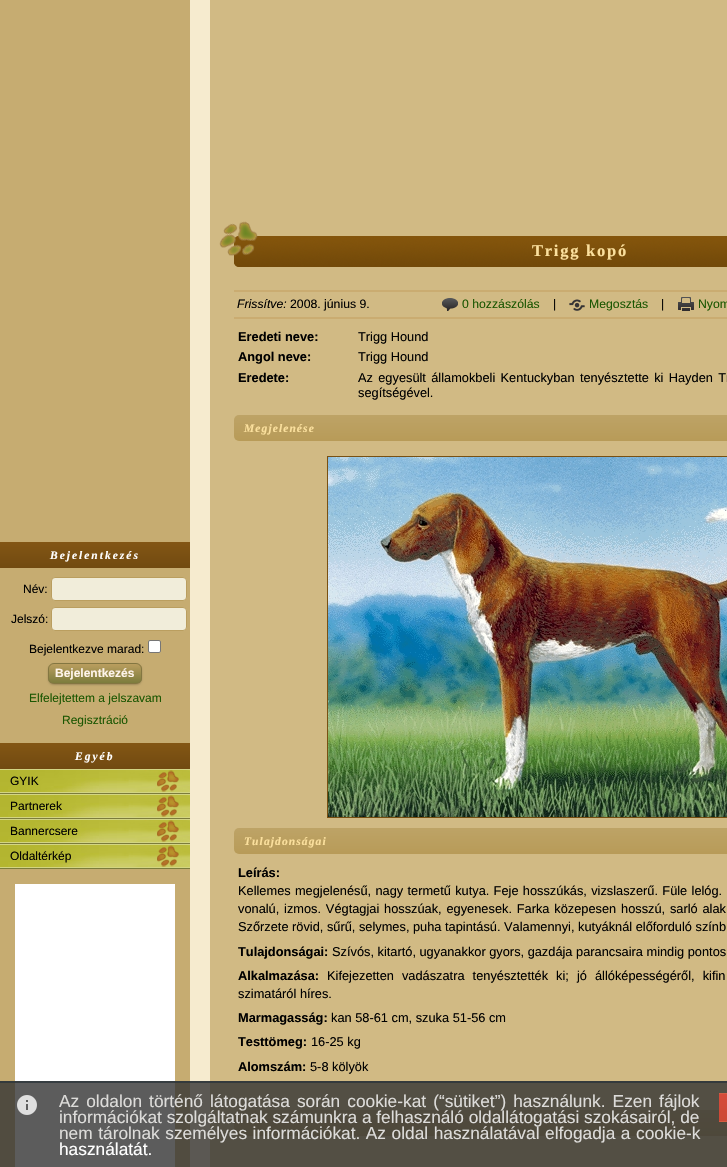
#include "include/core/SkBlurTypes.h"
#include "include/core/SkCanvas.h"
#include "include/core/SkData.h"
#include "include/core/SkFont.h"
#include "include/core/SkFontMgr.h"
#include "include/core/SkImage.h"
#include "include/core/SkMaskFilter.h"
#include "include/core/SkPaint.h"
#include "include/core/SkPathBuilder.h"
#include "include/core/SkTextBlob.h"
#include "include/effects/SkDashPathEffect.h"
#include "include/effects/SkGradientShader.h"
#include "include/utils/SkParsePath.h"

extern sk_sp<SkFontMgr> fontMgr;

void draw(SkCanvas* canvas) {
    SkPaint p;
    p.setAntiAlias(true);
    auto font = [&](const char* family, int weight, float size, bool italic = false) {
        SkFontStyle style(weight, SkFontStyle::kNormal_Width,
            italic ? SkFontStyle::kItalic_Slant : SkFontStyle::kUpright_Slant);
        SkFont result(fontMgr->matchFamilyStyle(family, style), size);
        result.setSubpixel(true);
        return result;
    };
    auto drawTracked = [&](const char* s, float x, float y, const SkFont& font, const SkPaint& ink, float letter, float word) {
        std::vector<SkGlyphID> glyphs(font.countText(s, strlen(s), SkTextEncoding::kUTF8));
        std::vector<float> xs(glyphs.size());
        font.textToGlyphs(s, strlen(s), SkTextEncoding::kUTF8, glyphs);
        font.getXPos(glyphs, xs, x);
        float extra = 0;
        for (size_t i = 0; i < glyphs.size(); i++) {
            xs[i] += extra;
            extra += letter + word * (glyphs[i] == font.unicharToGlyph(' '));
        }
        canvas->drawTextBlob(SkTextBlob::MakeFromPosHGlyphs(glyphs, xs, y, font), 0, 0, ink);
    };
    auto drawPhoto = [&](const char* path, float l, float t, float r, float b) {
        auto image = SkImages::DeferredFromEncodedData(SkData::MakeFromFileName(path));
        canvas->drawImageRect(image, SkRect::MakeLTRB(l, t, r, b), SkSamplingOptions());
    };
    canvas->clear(0xFFFFFFFF);
    drawPhoto("media/1.png", 0, 0, 727, 1167);
    {
        const SkColor colors[] = {0xFF835614, 0xFF714A11};
        const float stops[] = {0, 1};
        const SkPoint ends[] = {{0, 542}, {0, 568}};
        p.setShader(SkGradientShader::MakeLinear(ends, colors, stops, 2, SkTileMode::kClamp));
        p.setAlpha(255);
    }
    canvas->drawRect(SkRect::MakeLTRB(0, 542, 190, 568), p);
    auto font1 = font("Liberation Serif", 700, 11.5f, true);
    p.setShader(nullptr);
    p.setColor(0xFFFFFFFF);
    drawTracked("Bejelentkezés", 50, 559, font1, p, 2, 0);
    auto font2 = font("Liberation Sans", 400, 12);
    p.setColor(0xFF000000);
    canvas->drawString("Név:", 23, 593, font2, p);
    p.setColor(0xFFF1EDDA);
    canvas->drawRoundRect(SkRect::MakeLTRB(51.5f, 577.5f, 186.5f, 600.5f), 3.5f, 3.5f, p);
    p.setStyle(SkPaint::kStroke_Style);
    p.setStrokeWidth(1);
    p.setColor(0xFFBA9E5F);
    canvas->drawRoundRect(SkRect::MakeLTRB(51.5f, 577.5f, 186.5f, 600.5f), 3.5f, 3.5f, p);
    p.setStyle(SkPaint::kFill_Style);
    p.setColor(0xFF000000);
    canvas->drawString("Jelszó:", 11, 623, font2, p);
    p.setColor(0xFFF1EDDA);
    canvas->drawRoundRect(SkRect::MakeLTRB(51.5f, 607.5f, 186.5f, 630.5f), 3.5f, 3.5f, p);
    p.setStyle(SkPaint::kStroke_Style);
    p.setColor(0xFFBA9E5F);
    canvas->drawRoundRect(SkRect::MakeLTRB(51.5f, 607.5f, 186.5f, 630.5f), 3.5f, 3.5f, p);
    p.setStyle(SkPaint::kFill_Style);
    p.setColor(0xFF000000);
    canvas->drawString("Bejelentkezve marad:", 29, 653, font2, p);
    p.setColor(0xFFFFFFFF);
    canvas->drawRoundRect(SkRect::MakeLTRB(148.5f, 640.5f, 160.5f, 652.5f), 1.5f, 1.5f, p);
    p.setStyle(SkPaint::kStroke_Style);
    p.setColor(0xFF767676);
    canvas->drawRoundRect(SkRect::MakeLTRB(148.5f, 640.5f, 160.5f, 652.5f), 1.5f, 1.5f, p);
    p.setStyle(SkPaint::kFill_Style);
    p.setColor(0x33000000);
    p.setMaskFilter(SkMaskFilter::MakeBlur(kNormal_SkBlurStyle, 1));
    canvas->drawRoundRect(SkRect::MakeLTRB(48, 664, 142, 685), 6, 6, p);
    p.setMaskFilter(nullptr);
    canvas->save();
    canvas->clipPath(SkPathBuilder().moveTo(54, 663).lineTo(136, 663).cubicTo(139.5f, 663, 142, 665.5f, 142, 669).lineTo(142, 678).cubicTo(142, 681.5f, 139.5f, 684, 136, 684).lineTo(54, 684).cubicTo(50.5f, 684, 48, 681.5f, 48, 678).lineTo(48, 669).cubicTo(48, 665.5f, 50.5f, 663, 54, 663).close().detach(), true);
    {
        const SkColor colors[] = {0xFFBA9E5F, 0xFF7C7C3C};
        const float stops[] = {0, 1};
        const SkPoint ends[] = {{49, 664}, {49, 683}};
        p.setShader(SkGradientShader::MakeLinear(ends, colors, stops, 2, SkTileMode::kClamp));
        p.setAlpha(255);
    }
    canvas->drawRect(SkRect::MakeLTRB(48, 664, 142, 683), p);
    canvas->restore();
    p.setStyle(SkPaint::kStroke_Style);
    p.setShader(nullptr);
    p.setColor(0xFF837641);
    canvas->drawRoundRect(SkRect::MakeLTRB(48.5f, 663.5f, 141.5f, 683.5f), 5.5f, 5.5f, p);
    auto font3 = font("Liberation Sans", 700, 12);
    p.setStyle(SkPaint::kFill_Style);
    p.setColor(0xFFFEF4E9);
    canvas->drawString("Bejelentkezés", 55, 677, font3, p);
    p.setColor(0xFF1C5702);
    canvas->drawString("Elfelejtettem a jelszavam", 29, 702, font2, p);
    canvas->drawString("Regisztráció", 62, 724, font2, p);
    {
        const SkColor colors[] = {0xFF835614, 0xFF714A11};
        const float stops[] = {0, 1};
        const SkPoint ends[] = {{0, 743}, {0, 769}};
        p.setShader(SkGradientShader::MakeLinear(ends, colors, stops, 2, SkTileMode::kClamp));
        p.setAlpha(255);
    }
    canvas->drawRect(SkRect::MakeLTRB(0, 743, 190, 769), p);
    p.setShader(nullptr);
    p.setColor(0xFFFFFFFF);
    drawTracked("Egyéb", 75, 760, font1, p, 2, 0);
    p.setColor(0xFFD3D582);
    canvas->drawRect(SkRect::MakeLTRB(0, 769, 190, 868), p);
    drawPhoto("media/2.png", 0, 770, 190, 792);
    p.setColor(0xFF7C7C3C);
    canvas->drawRect(SkRect::MakeLTRB(0, 793, 190, 794), p);
    p.setColor(0xFF000000);
    canvas->drawString("GYIK", 10, 785, font2, p);
    drawPhoto("media/2.png", 0, 795, 190, 817);
    p.setColor(0xFF7C7C3C);
    canvas->drawRect(SkRect::MakeLTRB(0, 818, 190, 819), p);
    p.setColor(0xFF000000);
    canvas->drawString("Partnerek", 10, 810, font2, p);
    drawPhoto("media/2.png", 0, 820, 190, 842);
    p.setColor(0xFF7C7C3C);
    canvas->drawRect(SkRect::MakeLTRB(0, 843, 190, 844), p);
    p.setColor(0xFF000000);
    canvas->drawString("Bannercsere", 10, 835, font2, p);
    drawPhoto("media/2.png", 0, 845, 190, 867);
    p.setColor(0xFF7C7C3C);
    canvas->drawRect(SkRect::MakeLTRB(0, 868, 190, 869), p);
    p.setColor(0xFF000000);
    canvas->drawString("Oldaltérkép", 10, 860, font2, p);
    p.setColor(0xFFFFFFFF);
    canvas->drawRect(SkRect::MakeLTRB(15, 884, 175, 1167), p);
    drawPhoto("media/3.png", 219, 221, 727, 267);
    auto font4 = font("Liberation Serif", 700, 16.5f);
    p.setColor(0xFFFBE09D);
    drawTracked("Trigg kopó", 532, 256, font4, p, 1.75f, 0);
    p.setColor(0xFFCAAC71);
    canvas->drawRect(SkRect::MakeLTRB(234, 290, 727, 292), p);
    canvas->drawRect(SkRect::MakeLTRB(234, 317, 727, 319), p);
    auto font5 = font("Liberation Sans", 400, 12.25f, true);
    p.setColor(0xFF000000);
    canvas->drawString("Frissítve:", 237, 308, font5, p);
    auto font6 = font("Liberation Sans", 400, 12.25f);
    canvas->drawString("2008. június 9.", 290, 308, font6, p);
    drawPhoto("media/4.png", 442, 298, 458, 311);
    p.setColor(0xFF1C5702);
    canvas->drawString("0 hozzászólás", 462, 308, font6, p);
    p.setColor(0xFF000000);
    canvas->drawString("|", 553, 308, font6, p);
    drawPhoto("media/5.png", 569, 299, 585, 311);
    p.setColor(0xFF1C5702);
    canvas->drawString("Megosztás", 589, 308, font6, p);
    p.setColor(0xFF000000);
    canvas->drawString("|", 661, 308, font6, p);
    drawPhoto("media/6.png", 678, 297, 694, 311);
    p.setColor(0xFF1C5702);
    canvas->drawString("Nyom", 698, 308, font6, p);
    auto font7 = font("Liberation Sans", 700, 12.8f);
    p.setColor(0xFF000000);
    canvas->drawString("Eredeti neve:", 238, 341, font7, p);
    auto font8 = font("Liberation Sans", 400, 12.8f);
    canvas->drawString("Trigg Hound", 358, 341, font8, p);
    canvas->drawString("Angol neve:", 238, 361, font7, p);
    canvas->drawString("Trigg Hound", 358, 361, font8, p);
    canvas->drawString("Eredete:", 238, 382, font7, p);
    drawTracked("Az egyesült államokbeli Kentuckyban tenyésztette ki Hayden Tr", 358, 382, font8, p, 0, 1.75f);
    canvas->drawString("segítségével.", 358, 397, font8, p);
    {
        const SkColor colors[] = {0xFFBDA366, 0xFFB89B58};
        const float stops[] = {0, 1};
        const SkPoint ends[] = {{234, 415}, {234, 441}};
        p.setShader(SkGradientShader::MakeLinear(ends, colors, stops, 2, SkTileMode::kClamp));
        p.setAlpha(255);
    }
    canvas->drawRoundRect(SkRect::MakeLTRB(234, 415, 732, 441), 5, 5, p);
    p.setShader(nullptr);
    p.setColor(0xFFFBE09D);
    drawTracked("Megjelenése", 244, 432, font1, p, 1.1f, 0);
    p.setStyle(SkPaint::kStroke_Style);
    p.setColor(0xFF785012);
    canvas->drawRect(SkRect::MakeLTRB(327.5f, 456.5f, 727.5f, 817.5f), p);
    drawPhoto("media/7.png", 328, 457, 727, 817);
    p.setStyle(SkPaint::kFill_Style);
    {
        const SkColor colors[] = {0xFFBDA366, 0xFFB89B58};
        const float stops[] = {0, 1};
        const SkPoint ends[] = {{234, 828}, {234, 854}};
        p.setShader(SkGradientShader::MakeLinear(ends, colors, stops, 2, SkTileMode::kClamp));
        p.setAlpha(255);
    }
    canvas->drawRoundRect(SkRect::MakeLTRB(234, 828, 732, 854), 5, 5, p);
    p.setShader(nullptr);
    p.setColor(0xFFFBE09D);
    drawTracked("Tulajdonságai", 244, 845, font1, p, 1.1f, 0);
    p.setColor(0xFF000000);
    canvas->drawString("Leírás:", 238, 877, font7, p);
    drawTracked("Kellemes megjelenésű, nagy termetű kutya. Feje hosszúkás, vizslaszerű. Füle lelóg.", 238, 895, font8, p, 0, 0.75f);
    drawTracked("vonalú, izmos. Végtagjai hosszúak, egyenesek. Farka közepesen hosszú, sarló alak", 238, 913, font8, p, 0, 1.25f);
    canvas->drawString("Szőrzete rövid, sűrű, selymes, puha tapintású. Valamennyi, kutyáknál előforduló színb", 238, 931, font8, p);
    canvas->drawString("Tulajdonságai:", 238, 956, font7, p);
    canvas->drawString("Szívós, kitartó, ugyanakkor gyors, gazdája parancsaira mindig pontos", 332, 956, font8, p);
    canvas->drawString("Alkalmazása:", 238, 980, font7, p);
    drawTracked("Kifejezetten vadászatra tenyésztették ki; jó állóképességéről, kifin", 327, 980, font8, p, 0, 4.5f);
    canvas->drawString("szimatáról híres.", 238, 998, font8, p);
    canvas->drawString("Marmagasság:", 238, 1022, font7, p);
    canvas->drawString("kan 58-61 cm, szuka 51-56 cm", 331, 1022, font8, p);
    canvas->drawString("Testtömeg:", 238, 1046, font7, p);
    canvas->drawString("16-25 kg", 311, 1046, font8, p);
    canvas->drawString("Alomszám:", 238, 1071, font7, p);
    canvas->drawString("5-8 kölyök", 310, 1071, font8, p);
    {
        const SkColor colors[] = {0xFFBDA366, 0xFFB89B58};
        const float stops[] = {0, 1};
        const SkPoint ends[] = {{234, 1110}, {234, 1136}};
        p.setShader(SkGradientShader::MakeLinear(ends, colors, stops, 2, SkTileMode::kClamp));
        p.setAlpha(255);
    }
    canvas->drawRoundRect(SkRect::MakeLTRB(234, 1110, 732, 1136), 5, 5, p);
    p.setShader(nullptr);
    p.setColor(0xCC333333);
    canvas->drawRect(SkRect::MakeLTRB(0, 1081, 727, 1167), p);
    p.setColor(0xCC2C353A);
    canvas->drawRect(SkRect::MakeLTRB(0, 1081, 727, 1083), p);
    drawPhoto("media/8.png", 17, 1095, 37, 1115);
    auto font9 = font("Liberation Sans", 400, 17.3f);
    p.setColor(0xFFDDDCDA);
    drawTracked("Az oldalon történő látogatása során cookie-kat (“sütiket”) használunk. Ezen fájlok", 59, 1107, font9, p, 0, 2.25f);
    canvas->drawString("információkat szolgáltatnak számunkra a felhasználó oldallátogatási szokásairól, de", 59, 1123, font9, p);
    drawTracked("nem tárolnak személyes információkat. Az oldal használatával elfogadja a cookie-k", 59, 1139, font9, p, 0, 0.75f);
    p.setColor(0xFFFFFFFF);
    canvas->drawString("használatát.", 59, 1155, font9, p);
    p.setColor(0xCCD14836);
    canvas->drawRoundRect(SkRect::MakeLTRB(719, 1093, 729, 1122), 2, 2, p);
    {
        const SkColor colors[] = {0xFFDB6148, 0xFFD15F46};
        const float stops[] = {0, 1};
        const SkPoint ends[] = {{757, 1067}, {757, 1094}};
        p.setShader(SkGradientShader::MakeLinear(ends, colors, stops, 2, SkTileMode::kClamp));
        p.setAlpha(255);
    }
    canvas->drawRect(SkRect::MakeLTRB(719, 1093, 727, 1094), p);
    {
        const SkColor colors[] = {0xCCDD4B39, 0xCCD14836};
        const float stops[] = {0, 1};
        const SkPoint ends[] = {{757, 1094}, {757, 1121}};
        p.setShader(SkGradientShader::MakeLinear(ends, colors, stops, 2, SkTileMode::kClamp));
        p.setAlpha(255);
    }
    canvas->drawRect(SkRect::MakeLTRB(719, 1094, 727, 1121), p);
    {
        const SkColor colors[] = {0xFFD65C41, 0xFFCD593E};
        const float stops[] = {0, 1};
        const SkPoint ends[] = {{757, 1121}, {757, 1148}};
        p.setShader(SkGradientShader::MakeLinear(ends, colors, stops, 2, SkTileMode::kClamp));
        p.setAlpha(255);
    }
    canvas->drawRect(SkRect::MakeLTRB(719, 1121, 727, 1122), p);
}
